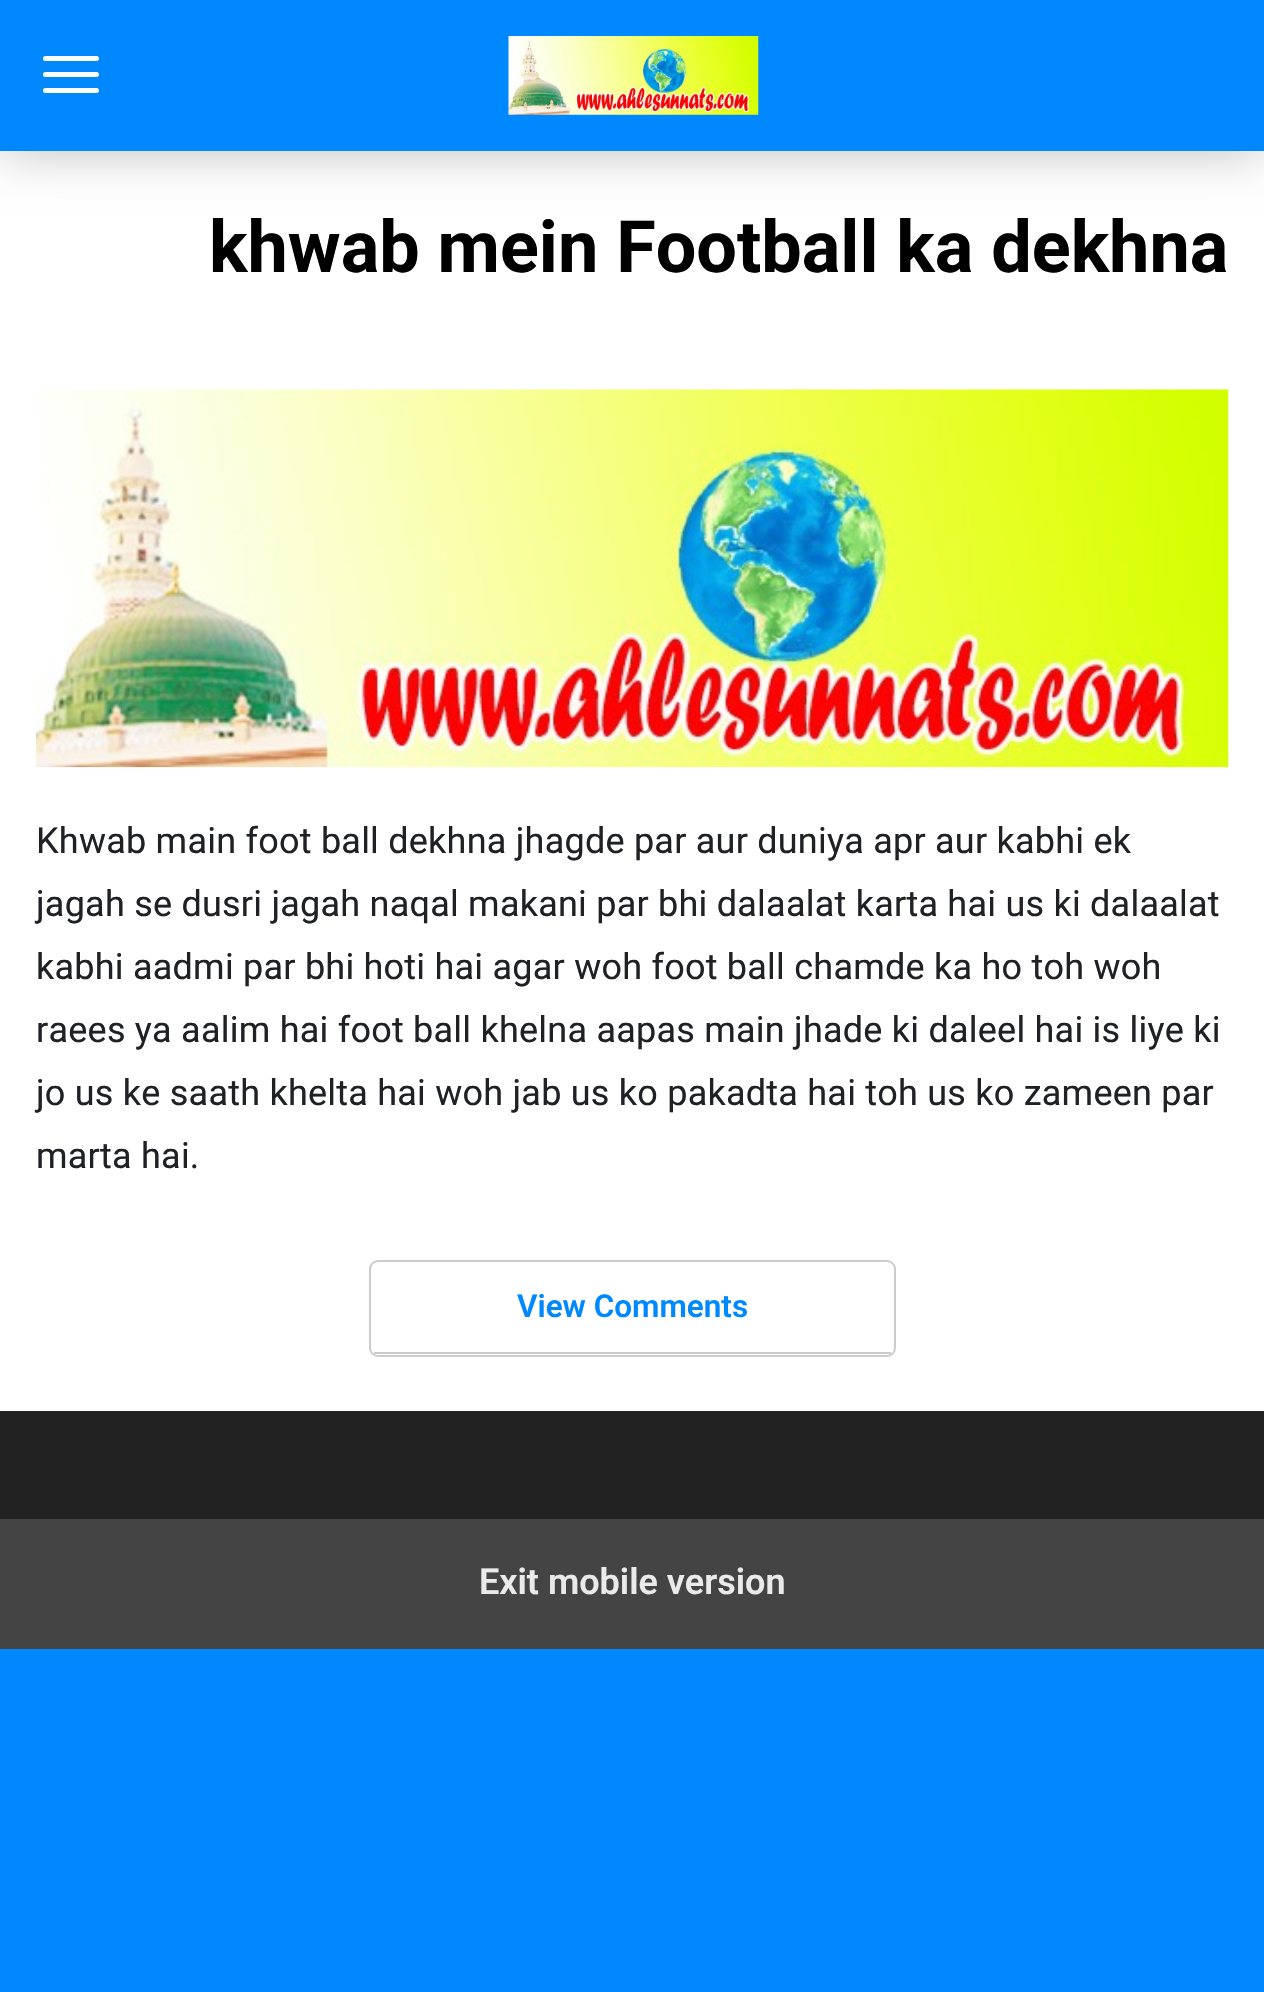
#include "include/core/SkBlurTypes.h"
#include "include/core/SkCanvas.h"
#include "include/core/SkData.h"
#include "include/core/SkFont.h"
#include "include/core/SkFontMgr.h"
#include "include/core/SkImage.h"
#include "include/core/SkMaskFilter.h"
#include "include/core/SkPaint.h"
#include "include/core/SkPathBuilder.h"
#include "include/core/SkTextBlob.h"
#include "include/effects/SkDashPathEffect.h"
#include "include/effects/SkGradientShader.h"
#include "include/utils/SkParsePath.h"

extern sk_sp<SkFontMgr> fontMgr;

void draw(SkCanvas* canvas) {
    SkPaint p;
    p.setAntiAlias(true);
    auto font = [&](const char* family, int weight, float size, bool italic = false) {
        SkFontStyle style(weight, SkFontStyle::kNormal_Width,
            italic ? SkFontStyle::kItalic_Slant : SkFontStyle::kUpright_Slant);
        SkFont result(fontMgr->matchFamilyStyle(family, style), size);
        result.setSubpixel(true);
        return result;
    };
    auto drawTracked = [&](const char* s, float x, float y, const SkFont& font, const SkPaint& ink, float letter, float word) {
        std::vector<SkGlyphID> glyphs(font.countText(s, strlen(s), SkTextEncoding::kUTF8));
        std::vector<float> xs(glyphs.size());
        font.textToGlyphs(s, strlen(s), SkTextEncoding::kUTF8, glyphs);
        font.getXPos(glyphs, xs, x);
        float extra = 0;
        for (size_t i = 0; i < glyphs.size(); i++) {
            xs[i] += extra;
            extra += letter + word * (glyphs[i] == font.unicharToGlyph(' '));
        }
        canvas->drawTextBlob(SkTextBlob::MakeFromPosHGlyphs(glyphs, xs, y, font), 0, 0, ink);
    };
    auto drawPhoto = [&](const char* path, float l, float t, float r, float b) {
        auto image = SkImages::DeferredFromEncodedData(SkData::MakeFromFileName(path));
        canvas->drawImageRect(image, SkRect::MakeLTRB(l, t, r, b), SkSamplingOptions());
    };
    canvas->clear(0xFF0088FF);
    p.setColor(0xFFFFFFFF);
    canvas->drawRect(SkRect::MakeLTRB(0, 151, 1264, 1411), p);
    p.setColor(0x40000000);
    p.setMaskFilter(SkMaskFilter::MakeBlur(kNormal_SkBlurStyle, 27));
    canvas->drawRect(SkRect::MakeLTRB(0, 0, 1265, 151), p);
    p.setMaskFilter(nullptr);
    p.setColor(0xFF0088FF);
    canvas->drawRect(SkRect::MakeLTRB(0, 0, 1264, 151), p);
    p.setColor(0xFFFFFFFF);
    canvas->drawRoundRect(SkRect::MakeLTRB(43, 56, 99, 61), 2.5f, 2.5f, p);
    canvas->drawRoundRect(SkRect::MakeLTRB(43, 72, 99, 77), 2.5f, 2.5f, p);
    canvas->drawRoundRect(SkRect::MakeLTRB(43, 88, 99, 93), 2.5f, 2.5f, p);
    drawPhoto("media/1.png", 508, 36, 759, 115);
    auto font1 = font("Roboto", 700, 72);
    p.setColor(0xFF000000);
    canvas->drawString("khwab mein Football ka dekhna", 209, 272, font1, p);
    drawPhoto("media/2.png", 36, 389, 1229, 768);
    auto font2 = font("Roboto", 400, 36);
    p.setColor(0xFF202124);
    {
        const struct { const char* s; float x, y; } items[] = {
            {"Khwab main foot ball dekhna jhagde par aur duniya apr aur kabhi ek", 36, 853},
            {"jagah se dusri jagah naqal makani par bhi dalaalat karta hai us ki dalaalat", 36, 916},
            {"kabhi aadmi par bhi hoti hai agar woh foot ball chamde ka ho toh woh", 36, 979},
            {"raees ya aalim hai foot ball khelna aapas main jhade ki daleel hai is liye ki", 36, 1042},
            {"jo us ke saath khelta hai woh jab us ko pakadta hai toh us ko zameen par", 36, 1105},
            {"marta hai.", 36, 1168},
        };
        for (auto [s, x, y] : items) {
            drawTracked(s, x, y, font2, p, 0.23f, 0);
        }
    }
    p.setStyle(SkPaint::kStroke_Style);
    p.setStrokeWidth(2);
    p.setColor(0xFFCCCCCC);
    canvas->drawRoundRect(SkRect::MakeLTRB(370, 1261, 895, 1356), 8, 8, p);
    p.setStyle(SkPaint::kFill_Style);
    canvas->drawRect(SkRect::MakeLTRB(374, 1352, 891, 1354), p);
    auto font3 = font("Roboto", 600, 31.5f);
    p.setColor(0xFF0088FF);
    canvas->drawString("View Comments", 517, 1317, font3, p);
    p.setColor(0xFF222222);
    canvas->drawRect(SkRect::MakeLTRB(0, 1411, 1264, 1519), p);
    p.setColor(0xFF444444);
    canvas->drawRect(SkRect::MakeLTRB(0, 1519, 1264, 1649), p);
    auto font4 = font("Roboto", 600, 36);
    p.setColor(0xFFEAEAEA);
    canvas->drawString("Exit mobile version", 479, 1594, font4, p);
}
